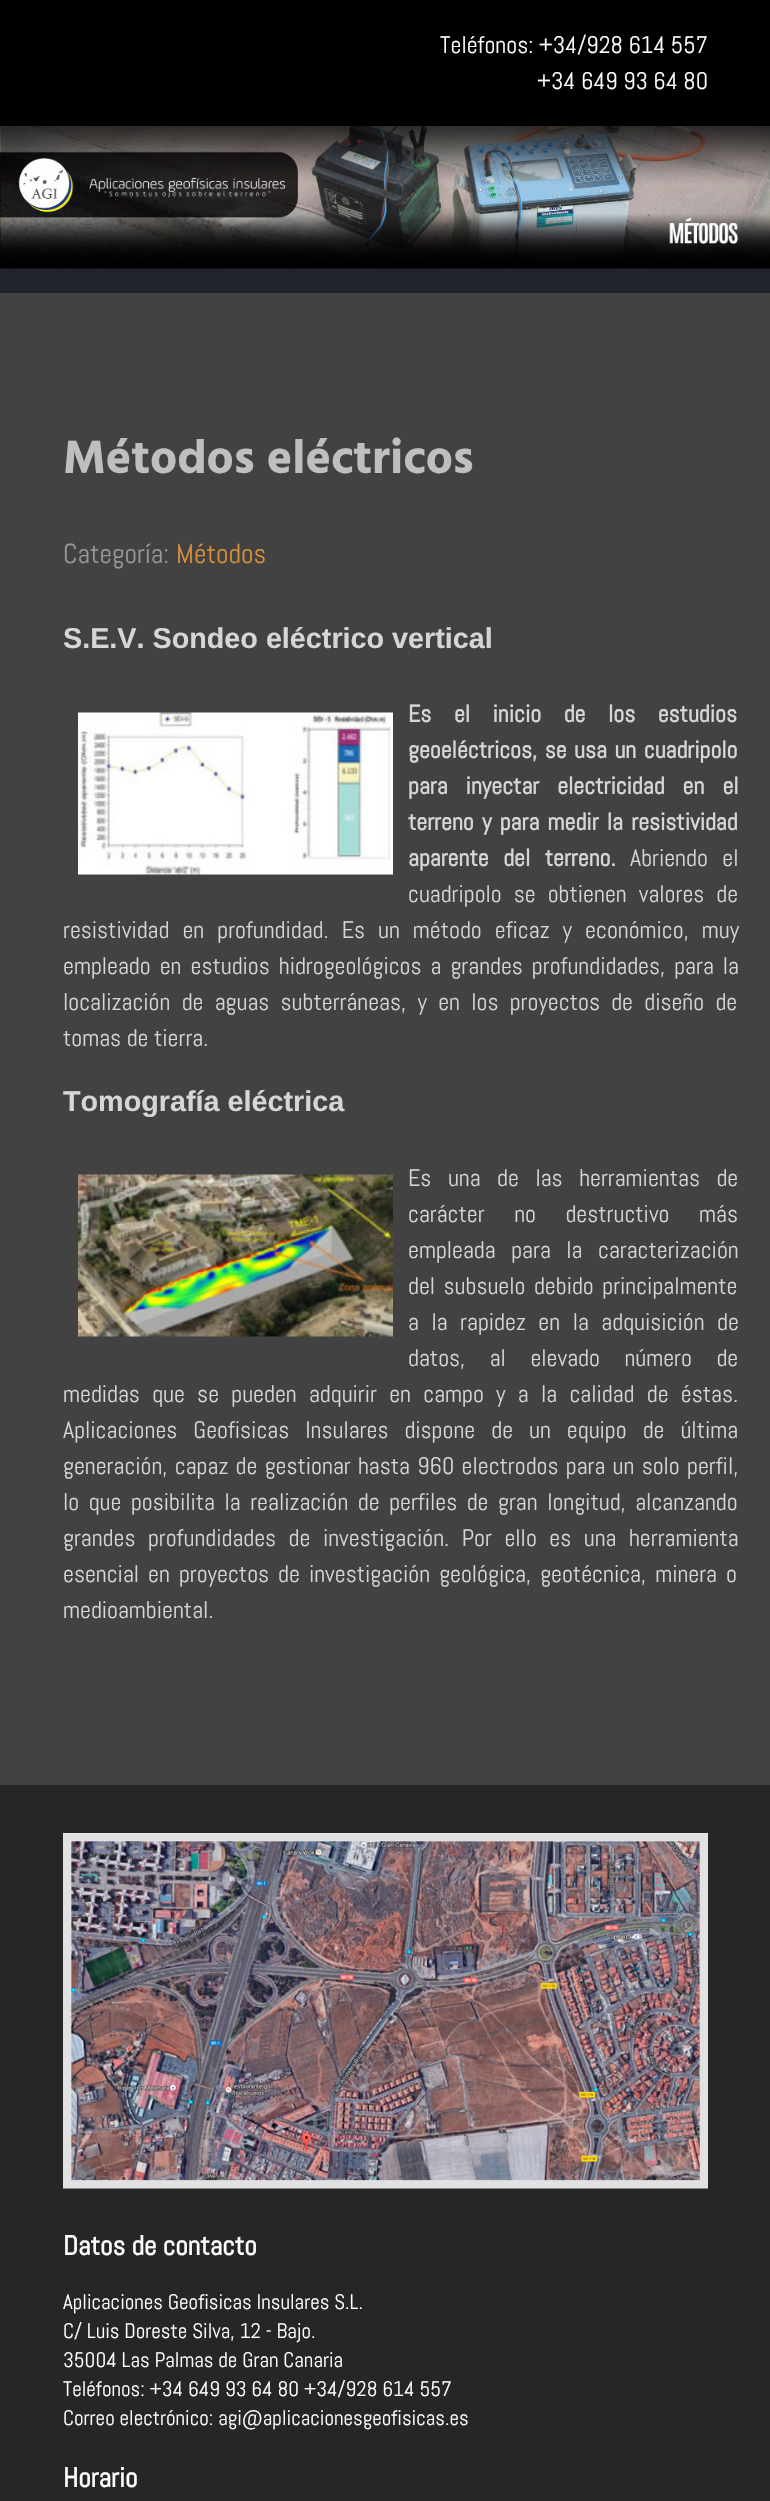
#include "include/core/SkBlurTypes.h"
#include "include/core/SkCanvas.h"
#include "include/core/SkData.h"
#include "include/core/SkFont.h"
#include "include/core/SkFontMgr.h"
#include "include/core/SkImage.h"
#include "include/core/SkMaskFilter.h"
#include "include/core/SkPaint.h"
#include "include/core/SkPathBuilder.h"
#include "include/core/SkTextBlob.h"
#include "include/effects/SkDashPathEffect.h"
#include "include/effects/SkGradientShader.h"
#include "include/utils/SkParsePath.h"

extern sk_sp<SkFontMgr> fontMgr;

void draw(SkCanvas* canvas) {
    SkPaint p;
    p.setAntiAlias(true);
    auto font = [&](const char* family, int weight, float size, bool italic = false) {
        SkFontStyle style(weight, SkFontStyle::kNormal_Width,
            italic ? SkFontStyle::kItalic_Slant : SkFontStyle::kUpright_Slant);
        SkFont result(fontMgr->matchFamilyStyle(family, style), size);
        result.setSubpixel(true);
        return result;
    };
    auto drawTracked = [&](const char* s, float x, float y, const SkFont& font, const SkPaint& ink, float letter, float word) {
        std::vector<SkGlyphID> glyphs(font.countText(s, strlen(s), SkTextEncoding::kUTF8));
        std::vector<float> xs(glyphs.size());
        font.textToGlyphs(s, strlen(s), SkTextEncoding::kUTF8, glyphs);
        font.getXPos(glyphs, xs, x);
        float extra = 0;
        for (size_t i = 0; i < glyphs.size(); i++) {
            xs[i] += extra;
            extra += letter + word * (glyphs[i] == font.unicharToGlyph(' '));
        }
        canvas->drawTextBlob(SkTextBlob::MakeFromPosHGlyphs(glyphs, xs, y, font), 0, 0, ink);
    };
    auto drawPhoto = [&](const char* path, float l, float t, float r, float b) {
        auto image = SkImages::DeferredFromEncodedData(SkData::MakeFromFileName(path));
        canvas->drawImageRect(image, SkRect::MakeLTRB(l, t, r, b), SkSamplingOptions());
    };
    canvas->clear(0xFF424242);
    p.setColor(0xFF000000);
    canvas->drawRect(SkRect::MakeLTRB(0, 0, 770, 126), p);
    auto font1 = font("Abel", 400, 24);
    p.setColor(0xFFFFFFFF);
    canvas->drawString("Teléfonos: +34/928 614 557", 440, 53, font1, p);
    canvas->drawString("+34 649 93 64 80", 537, 89, font1, p);
    p.setColor(0xFF20232A);
    canvas->drawRect(SkRect::MakeLTRB(0, 268, 770, 293), p);
    drawPhoto("media/1.png", 0, 126, 770, 269);
    auto font2 = font("Hind", 700, 48);
    p.setColor(0xFFBFBFBF);
    canvas->drawString("Métodos eléctricos", 63, 473, font2, p);
    auto font3 = font("Abel", 400, 27.5f);
    p.setColor(0xFF999999);
    canvas->drawString("Categoría:", 63, 563, font3, p);
    p.setColor(0xFFDB903B);
    canvas->drawString("Métodos", 176, 563, font3, p);
    auto font4 = font("Liberation Sans", 700, 28.75f);
    p.setColor(0xFFD6D6D6);
    canvas->drawString("S.E.V. Sondeo eléctrico vertical", 63, 648, font4, p);
    drawPhoto("media/2.png", 78, 712, 393, 875);
    auto font5 = font("Abel", 700, 24);
    drawTracked("Es el inicio de los estudios", 408, 722, font5, p, 0, 17);
    drawTracked("geoeléctricos, se usa un cuadripolo", 408, 758, font5, p, 0, 2);
    drawTracked("para inyectar electricidad en el", 408, 794, font5, p, 0, 12.5f);
    drawTracked("terreno y para medir la resistividad", 408, 830, font5, p, 0, 2.75f);
    drawTracked("aparente del terreno.", 408, 866, font5, p, 0, 9);
    drawTracked("Abriendo el", 630, 866, font1, p, 0, 9);
    drawTracked("cuadripolo se obtienen valores de", 408, 902, font1, p, 0, 6.5f);
    drawTracked("resistividad en profundidad. Es un método eficaz y económico, muy", 63, 938, font1, p, 0, 7.5f);
    drawTracked("empleado en estudios hidrogeológicos a grandes profundidades, para la", 63, 974, font1, p, 0, 3.5f);
    drawTracked("localización de aguas subterráneas, y en los proyectos de diseño de", 63, 1010, font1, p, 0, 5.75f);
    canvas->drawString("tomas de tierra.", 63, 1046, font1, p);
    canvas->drawString("Tomografía eléctrica", 63, 1111, font4, p);
    drawPhoto("media/3.png", 78, 1174, 393, 1337);
    drawTracked("Es una de las herramientas de", 408, 1186, font1, p, 0, 11);
    drawTracked("carácter no destructivo más", 408, 1222, font1, p, 0, 24);
    drawTracked("empleada para la caracterización", 408, 1258, font1, p, 0, 10);
    drawTracked("del subsuelo debido principalmente", 408, 1294, font1, p, 0, 3);
    drawTracked("a la rapidez en la adquisición de", 408, 1330, font1, p, 0, 7);
    drawTracked("datos, al elevado número de", 408, 1366, font1, p, 0, 19);
    drawTracked("medidas que se pueden adquirir en campo y a la calidad de éstas.", 63, 1402, font1, p, 0, 6.75f);
    drawTracked("Aplicaciones Geofisicas Insulares dispone de un equipo de última", 63, 1438, font1, p, 0, 10.5f);
    drawTracked("generación, capaz de gestionar hasta 960 electrodos para un solo perfil,", 63, 1474, font1, p, 0, 1.75f);
    drawTracked("lo que posibilita la realización de perfiles de gran longitud, alcanzando", 63, 1510, font1, p, 0, 4);
    drawTracked("grandes profundidades de investigación. Por ello es una herramienta", 63, 1546, font1, p, 0, 7);
    drawTracked("esencial en proyectos de investigación geológica, geotécnica, minera o", 63, 1582, font1, p, 0, 3.5f);
    canvas->drawString("medioambiental.", 63, 1618, font1, p);
    p.setColor(0xFF262626);
    canvas->drawRect(SkRect::MakeLTRB(0, 1785, 770, 2501), p);
    drawPhoto("media/4.png", 63, 1833, 708, 2189);
    auto font6 = font("Abel", 700, 27.5f);
    p.setColor(0xFFFFFFFF);
    canvas->drawString("Datos de contacto", 63, 2255, font6, p);
    auto font7 = font("Abel", 400, 21);
    {
        const struct { const char* s; float x, y; } items[] = {
            {"Aplicaciones Geofisicas Insulares S.L.", 63, 2309},
            {"C/ Luis Doreste Silva, 12 - Bajo.", 63, 2338},
            {"35004 Las Palmas de Gran Canaria", 63, 2367},
            {"Teléfonos: +34 649 93 64 80 +34/928 614 557", 63, 2396},
            {"Correo electrónico: agi@aplicacionesgeofisicas.es", 63, 2425},
        };
        for (auto [s, x, y] : items) {
            canvas->drawString(s, x, y, font7, p);
        }
    }
    canvas->drawString("Horario", 63, 2487, font6, p);
}
